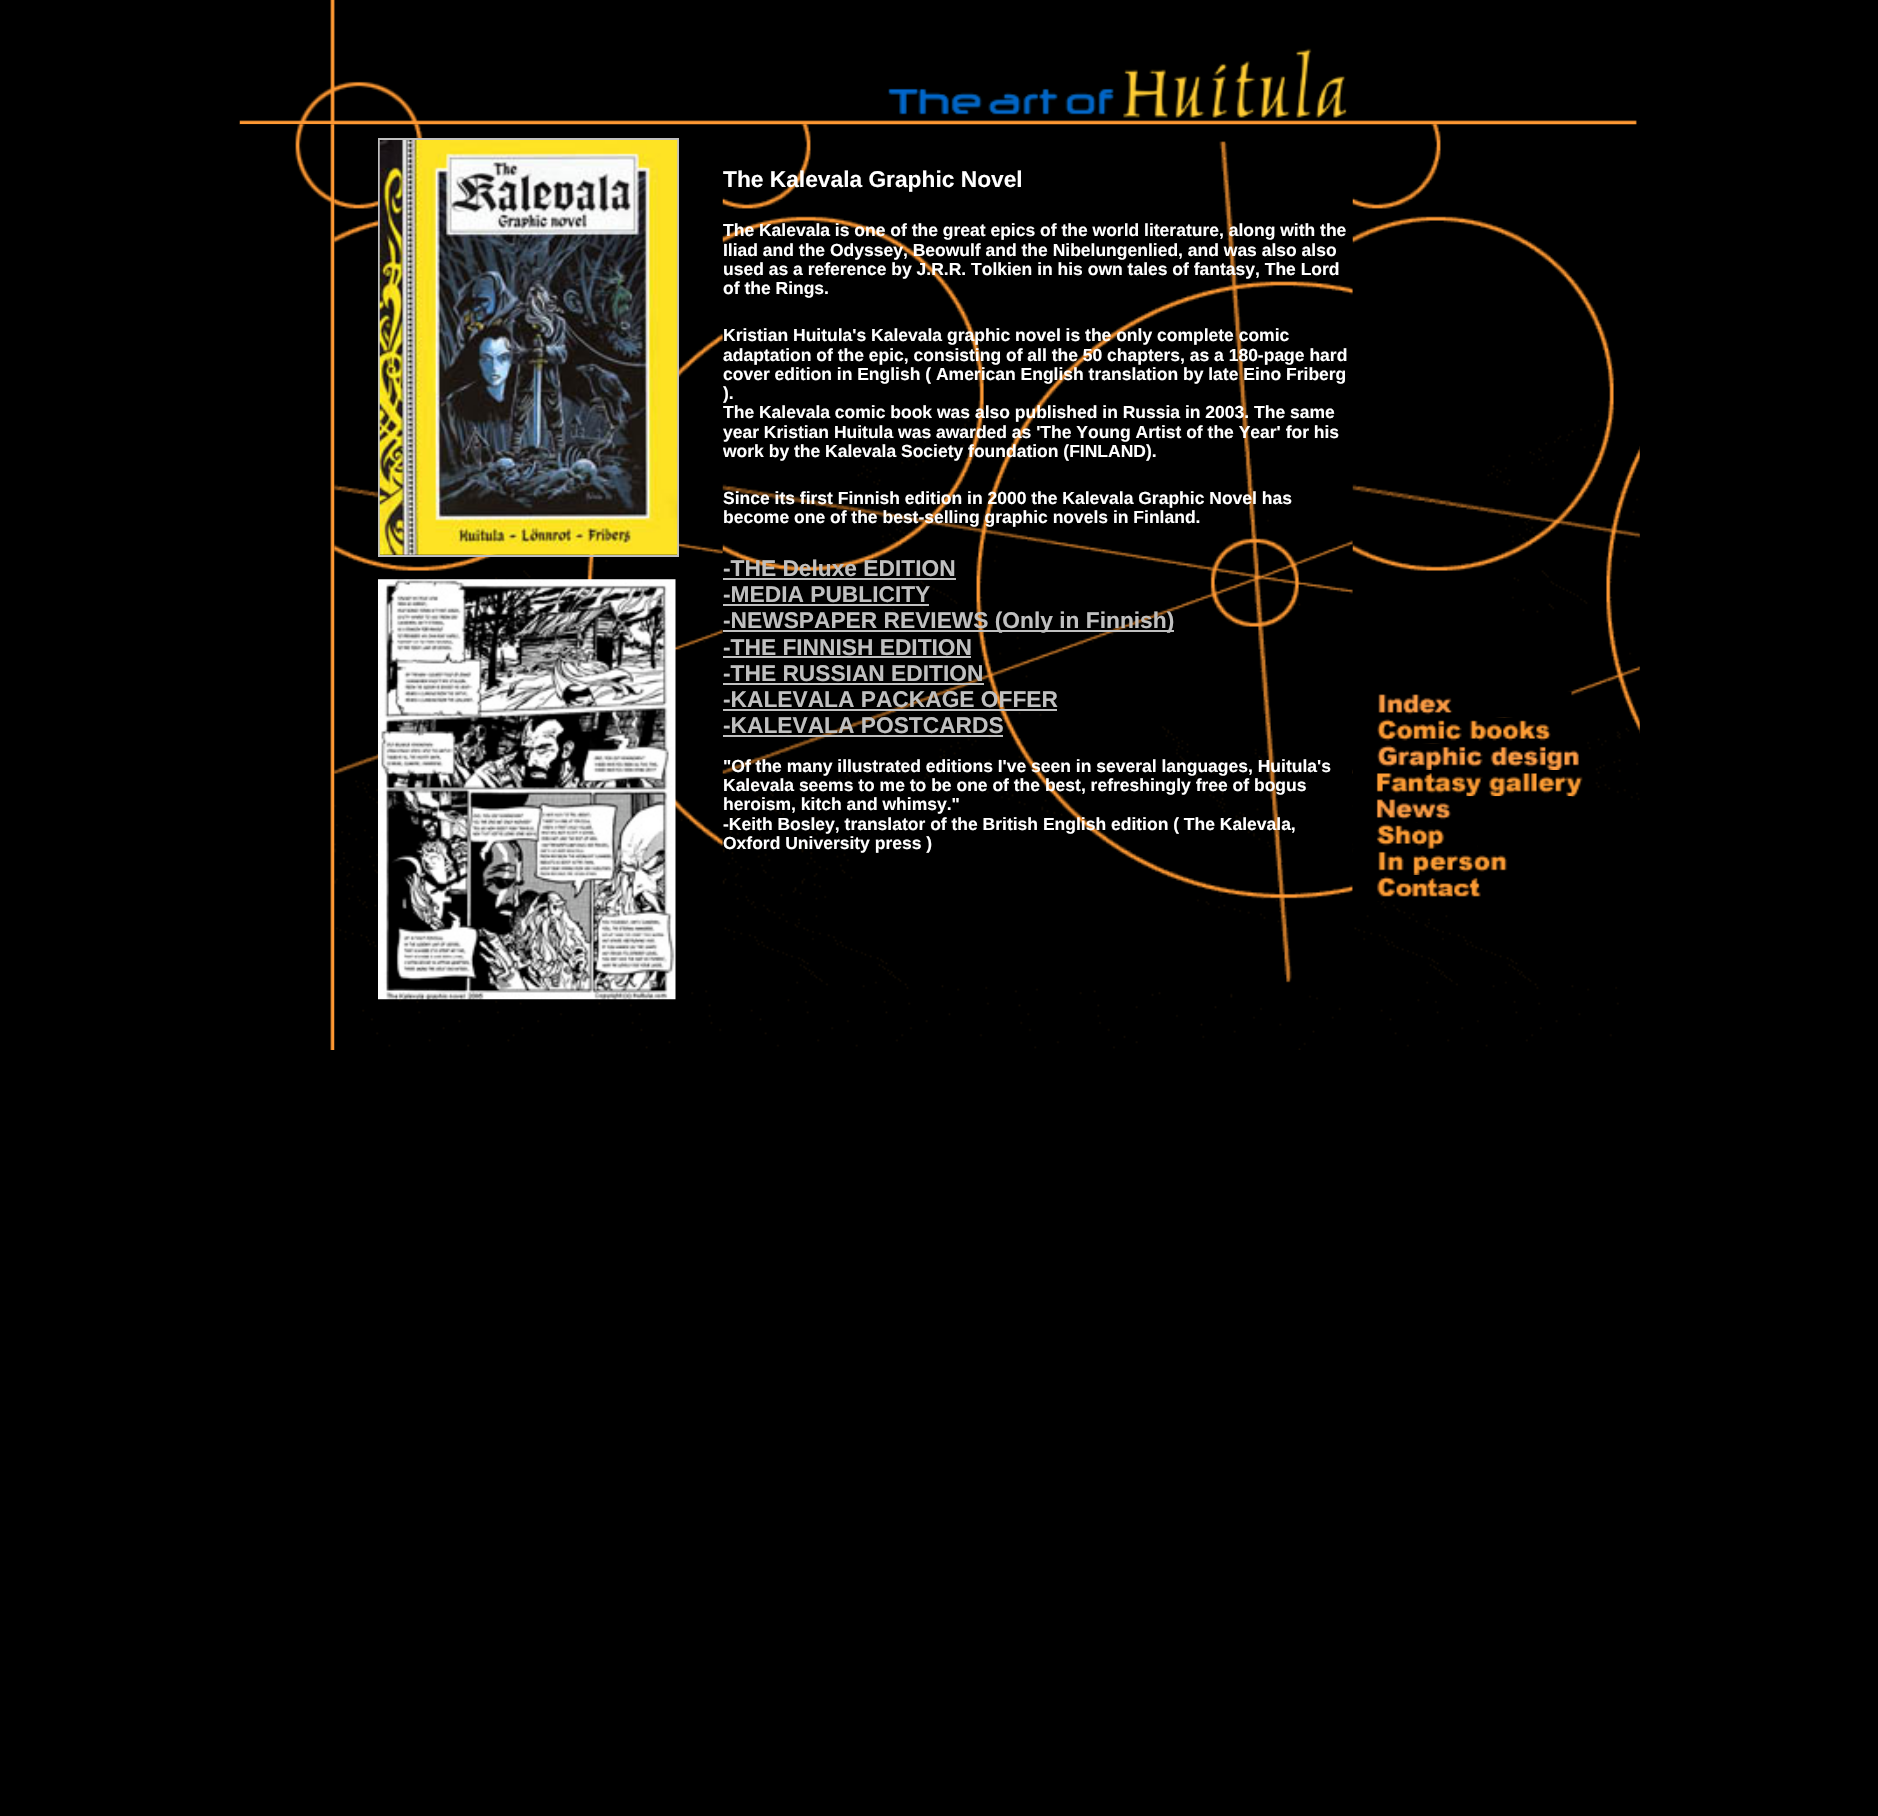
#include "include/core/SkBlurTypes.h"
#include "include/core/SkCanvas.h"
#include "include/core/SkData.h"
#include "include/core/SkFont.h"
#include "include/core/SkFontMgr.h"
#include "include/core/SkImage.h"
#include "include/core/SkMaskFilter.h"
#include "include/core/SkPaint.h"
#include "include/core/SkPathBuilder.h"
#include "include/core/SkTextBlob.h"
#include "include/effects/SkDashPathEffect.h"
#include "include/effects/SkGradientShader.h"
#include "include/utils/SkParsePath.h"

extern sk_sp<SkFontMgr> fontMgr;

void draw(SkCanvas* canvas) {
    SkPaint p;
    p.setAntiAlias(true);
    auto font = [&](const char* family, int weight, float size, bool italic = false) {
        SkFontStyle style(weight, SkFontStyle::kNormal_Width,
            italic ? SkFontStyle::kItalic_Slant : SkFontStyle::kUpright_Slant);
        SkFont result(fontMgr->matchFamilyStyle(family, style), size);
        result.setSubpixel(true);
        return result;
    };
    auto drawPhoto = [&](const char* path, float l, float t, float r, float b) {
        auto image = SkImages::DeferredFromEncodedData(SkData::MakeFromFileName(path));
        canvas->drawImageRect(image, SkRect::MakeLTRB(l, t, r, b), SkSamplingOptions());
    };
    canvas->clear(0xFF000000);
    drawPhoto("media/3.png", 334, 124, 723, 1049);
    drawPhoto("media/6.png", 722, 124, 1353, 1050);
    drawPhoto("media/7.png", 1352, 124, 1640, 1047);
    drawPhoto("media/1.png", 239, 0, 1637, 125);
    drawPhoto("media/2.png", 240, 124, 335, 1050);
    p.setStyle(SkPaint::kStroke_Style);
    p.setStrokeWidth(2);
    p.setColor(0xFFC0C0C0);
    canvas->drawRect(SkRect::MakeLTRB(379, 139, 678, 556), p);
    drawPhoto("media/4.png", 379, 140, 678, 555);
    drawPhoto("media/5.png", 378, 579, 676, 1000);
    auto font1 = font("Liberation Sans", 700, 22.75f);
    p.setStyle(SkPaint::kFill_Style);
    p.setColor(0xFFFFFFFF);
    canvas->drawString("The Kalevala Graphic Novel", 723, 187, font1, p);
    auto font2 = font("Liberation Sans", 700, 17.5f);
    {
        const struct { const char* s; float x, y; } items[] = {
            {"The Kalevala is one of the great epics of the world literature, along with the", 723, 236},
            {"Iliad and the Odyssey, Beowulf and the Nibelungenlied, and was also also", 723, 256},
            {"used as a reference by J.R.R. Tolkien in his own tales of fantasy, The Lord", 723, 275},
            {"of the Rings.", 723, 294},
            {"Kristian Huitula's Kalevala graphic novel is the only complete comic", 723, 341},
            {"adaptation of the epic, consisting of all the 50 chapters, as a 180-page hard", 723, 361},
            {"cover edition in English ( American English translation by late Eino Friberg", 723, 380},
            {").", 723, 399},
            {"The Kalevala comic book was also published in Russia in 2003. The same", 723, 418},
            {"year Kristian Huitula was awarded as 'The Young Artist of the Year' for his", 723, 438},
            {"work by the Kalevala Society foundation (FINLAND).", 723, 457},
            {"Since its first Finnish edition in 2000 the Kalevala Graphic Novel has", 723, 504},
            {"become one of the best-selling graphic novels in Finland.", 723, 523},
        };
        for (auto [s, x, y] : items) {
            canvas->drawString(s, x, y, font2, p);
        }
    }
    p.setColor(0xFFC0C0C0);
    canvas->drawString("-THE Deluxe EDITION", 723, 576, font1, p);
    canvas->drawRect(SkRect::MakeLTRB(723, 578, 956, 580), p);
    canvas->drawString("-MEDIA PUBLICITY", 723, 602, font1, p);
    canvas->drawRect(SkRect::MakeLTRB(723, 604, 929, 606), p);
    canvas->drawRect(SkRect::MakeLTRB(723, 630, 1174, 632), p);
    canvas->drawString("-NEWSPAPER REVIEWS (Only in Finnish)", 723, 628, font1, p);
    canvas->drawString("-THE FINNISH EDITION", 723, 655, font1, p);
    canvas->drawRect(SkRect::MakeLTRB(723, 656, 971, 658), p);
    canvas->drawString("-THE RUSSIAN EDITION", 723, 681, font1, p);
    canvas->drawRect(SkRect::MakeLTRB(723, 683, 984, 685), p);
    canvas->drawString("-KALEVALA PACKAGE OFFER", 723, 707, font1, p);
    canvas->drawRect(SkRect::MakeLTRB(723, 709, 1057, 711), p);
    canvas->drawString("-KALEVALA POSTCARDS", 723, 733, font1, p);
    canvas->drawRect(SkRect::MakeLTRB(723, 735, 1003, 737), p);
    p.setColor(0xFFFFFFFF);
    {
        const struct { const char* s; float x, y; } items[] = {
            {"\"Of the many illustrated editions I've seen in several languages, Huitula's", 723, 772},
            {"Kalevala seems to me to be one of the best, refreshingly free of bogus", 723, 791},
            {"heroism, kitch and whimsy.\"", 723, 810},
            {"-Keith Bosley, translator of the British English edition ( The Kalevala,", 723, 830},
            {"Oxford University press )", 723, 849},
        };
        for (auto [s, x, y] : items) {
            canvas->drawString(s, x, y, font2, p);
        }
    }
    drawPhoto("media/8.png", 1378, 691, 1572, 718);
    drawPhoto("media/9.png", 1377, 717, 1551, 744);
    drawPhoto("media/10.png", 1353, 743, 1586, 770);
    drawPhoto("media/11.png", 1352, 770, 1588, 797);
    drawPhoto("media/12.png", 1353, 796, 1572, 823);
    drawPhoto("media/13.png", 1353, 823, 1477, 849);
    drawPhoto("media/14.png", 1353, 848, 1508, 875);
    drawPhoto("media/15.png", 1352, 875, 1483, 901);
}
